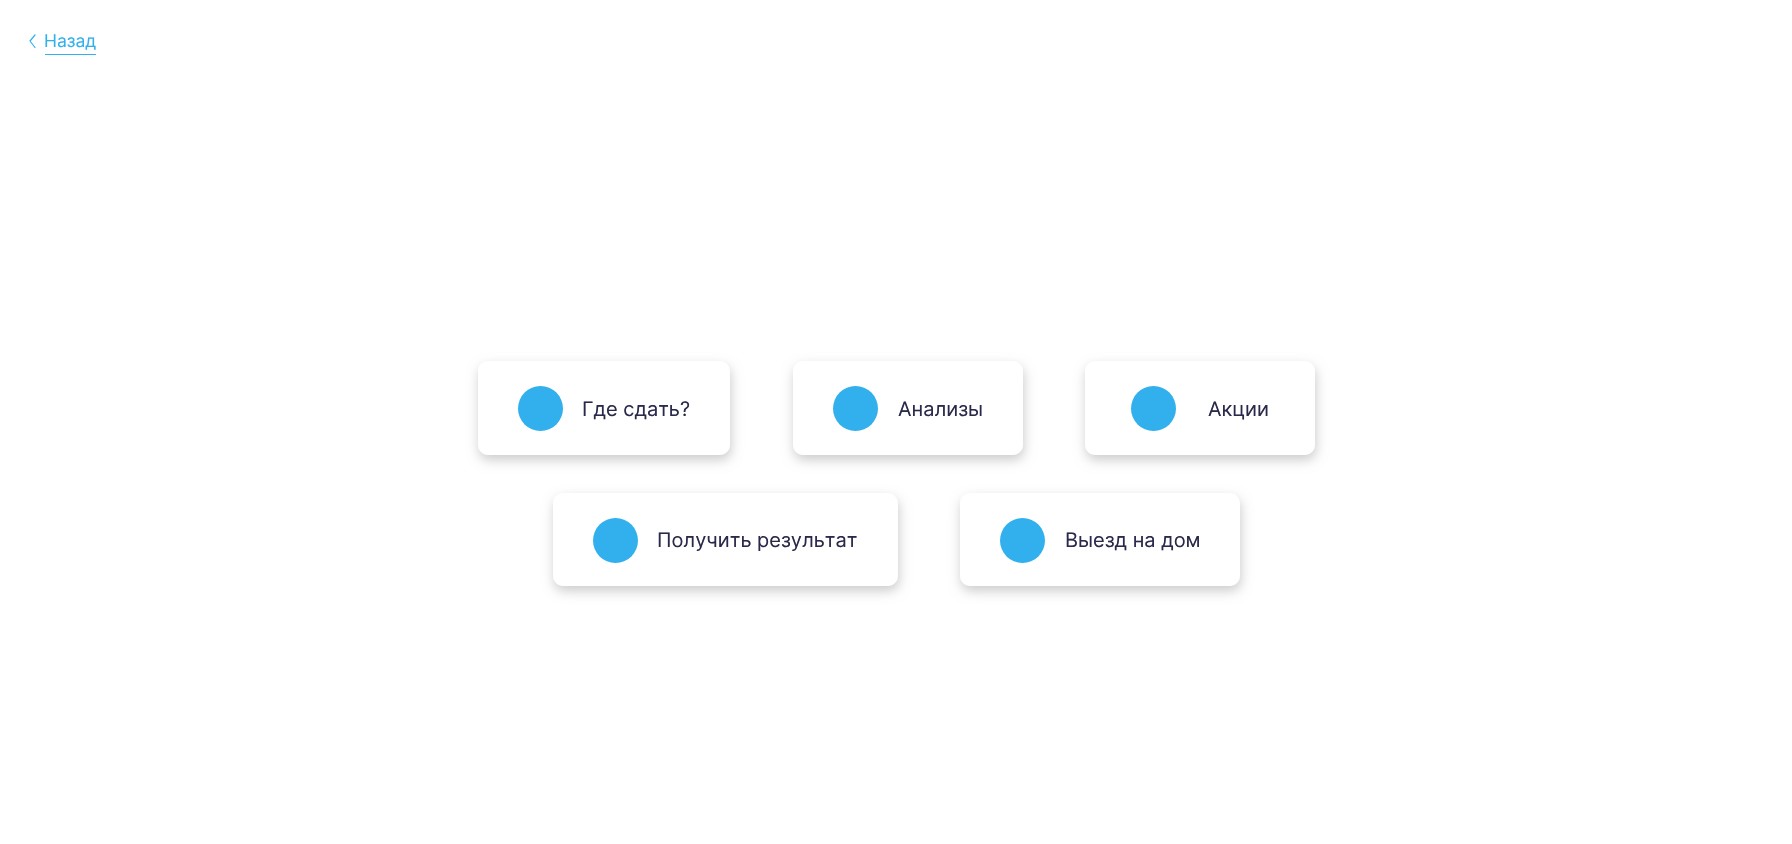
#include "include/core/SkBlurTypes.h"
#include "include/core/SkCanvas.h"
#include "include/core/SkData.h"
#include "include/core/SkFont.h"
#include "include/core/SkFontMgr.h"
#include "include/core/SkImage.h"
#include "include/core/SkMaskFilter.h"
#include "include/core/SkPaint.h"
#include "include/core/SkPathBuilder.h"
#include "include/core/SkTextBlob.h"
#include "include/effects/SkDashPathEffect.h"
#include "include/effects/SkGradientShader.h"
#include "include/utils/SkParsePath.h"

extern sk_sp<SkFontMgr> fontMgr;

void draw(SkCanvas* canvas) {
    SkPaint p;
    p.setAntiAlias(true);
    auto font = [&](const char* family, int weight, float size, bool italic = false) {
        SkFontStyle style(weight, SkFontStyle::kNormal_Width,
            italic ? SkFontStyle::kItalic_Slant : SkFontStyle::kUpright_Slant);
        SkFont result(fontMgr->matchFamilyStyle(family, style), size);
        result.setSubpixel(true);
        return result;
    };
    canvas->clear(0xFFFFFFFF);
    p.setStyle(SkPaint::kStroke_Style);
    p.setStrokeWidth(1.2f);
    p.setStrokeCap(SkPaint::kRound_Cap);
    p.setStrokeJoin(SkPaint::kRound_Join);
    p.setColor(0xFF31B0ED);
    canvas->drawPath(SkPathBuilder().moveTo(35, 47.5f).lineTo(30, 41).lineTo(35, 35).detach(), p);
    p.setStyle(SkPaint::kFill_Style);
    canvas->drawRect(SkRect::MakeLTRB(45, 54, 96, 55), p);
    auto font1 = font("Inter", 400, 17.5f);
    canvas->drawString("Назад", 44, 47, font1, p);
    canvas->save();
    canvas->clipPath(SkPathBuilder(SkPathFillType::kEvenOdd).moveTo(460, 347).lineTo(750, 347).lineTo(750, 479).lineTo(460, 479).close().moveTo(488, 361).lineTo(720, 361).cubicTo(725.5f, 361, 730, 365.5f, 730, 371).lineTo(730, 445).cubicTo(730, 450.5f, 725.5f, 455, 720, 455).lineTo(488, 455).cubicTo(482.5f, 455, 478, 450.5f, 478, 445).lineTo(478, 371).cubicTo(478, 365.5f, 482.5f, 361, 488, 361).close().detach(), true);
    p.setColor(0x33000000);
    p.setMaskFilter(SkMaskFilter::MakeBlur(kNormal_SkBlurStyle, 6));
    canvas->drawRoundRect(SkRect::MakeLTRB(479, 366, 731, 460), 10, 10, p);
    p.setMaskFilter(nullptr);
    canvas->restore();
    p.setColor(0xFF31B0ED);
    canvas->drawCircle(540.5f, 408.5f, 22.5f, p);
    auto font2 = font("Inter", 400, 20);
    p.setColor(0xFF29294B);
    canvas->drawString("Где сдать?", 582, 416, font2, p);
    canvas->save();
    canvas->clipPath(SkPathBuilder(SkPathFillType::kEvenOdd).moveTo(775, 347).lineTo(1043, 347).lineTo(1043, 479).lineTo(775, 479).close().moveTo(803, 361).lineTo(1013, 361).cubicTo(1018.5f, 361, 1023, 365.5f, 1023, 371).lineTo(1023, 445).cubicTo(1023, 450.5f, 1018.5f, 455, 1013, 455).lineTo(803, 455).cubicTo(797.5f, 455, 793, 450.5f, 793, 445).lineTo(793, 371).cubicTo(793, 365.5f, 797.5f, 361, 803, 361).close().detach(), true);
    p.setColor(0x33000000);
    p.setMaskFilter(SkMaskFilter::MakeBlur(kNormal_SkBlurStyle, 6));
    canvas->drawRoundRect(SkRect::MakeLTRB(794, 366, 1024, 460), 10, 10, p);
    p.setMaskFilter(nullptr);
    canvas->restore();
    p.setColor(0xFF31B0ED);
    canvas->drawCircle(855.5f, 408.5f, 22.5f, p);
    p.setColor(0xFF29294B);
    canvas->drawString("Анализы", 898, 416, font2, p);
    canvas->save();
    canvas->clipPath(SkPathBuilder(SkPathFillType::kEvenOdd).moveTo(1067, 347).lineTo(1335, 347).lineTo(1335, 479).lineTo(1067, 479).close().moveTo(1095, 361).lineTo(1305, 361).cubicTo(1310.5f, 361, 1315, 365.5f, 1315, 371).lineTo(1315, 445).cubicTo(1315, 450.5f, 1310.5f, 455, 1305, 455).lineTo(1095, 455).cubicTo(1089.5f, 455, 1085, 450.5f, 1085, 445).lineTo(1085, 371).cubicTo(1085, 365.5f, 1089.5f, 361, 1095, 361).close().detach(), true);
    p.setColor(0x33000000);
    p.setMaskFilter(SkMaskFilter::MakeBlur(kNormal_SkBlurStyle, 6));
    canvas->drawRoundRect(SkRect::MakeLTRB(1086, 366, 1316, 460), 10, 10, p);
    p.setMaskFilter(nullptr);
    canvas->restore();
    p.setColor(0xFF31B0ED);
    canvas->drawCircle(1153.5f, 408.5f, 22.5f, p);
    p.setColor(0xFF29294B);
    canvas->drawString("Акции", 1208, 416, font2, p);
    canvas->save();
    canvas->clipPath(SkPathBuilder(SkPathFillType::kEvenOdd).moveTo(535, 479).lineTo(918, 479).lineTo(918, 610).lineTo(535, 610).close().moveTo(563, 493).lineTo(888, 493).cubicTo(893.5f, 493, 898, 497.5f, 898, 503).lineTo(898, 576).cubicTo(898, 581.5f, 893.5f, 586, 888, 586).lineTo(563, 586).cubicTo(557.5f, 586, 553, 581.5f, 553, 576).lineTo(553, 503).cubicTo(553, 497.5f, 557.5f, 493, 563, 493).close().detach(), true);
    p.setColor(0x33000000);
    p.setMaskFilter(SkMaskFilter::MakeBlur(kNormal_SkBlurStyle, 6));
    canvas->drawRoundRect(SkRect::MakeLTRB(554, 498, 899, 591), 10, 10, p);
    p.setMaskFilter(nullptr);
    canvas->restore();
    p.setColor(0xFF31B0ED);
    canvas->drawCircle(615.5f, 540.5f, 22.5f, p);
    p.setColor(0xFF29294B);
    canvas->drawString("Получить результат", 657, 547, font2, p);
    canvas->save();
    canvas->clipPath(SkPathBuilder(SkPathFillType::kEvenOdd).moveTo(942, 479).lineTo(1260, 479).lineTo(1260, 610).lineTo(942, 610).close().moveTo(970, 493).lineTo(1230, 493).cubicTo(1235.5f, 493, 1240, 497.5f, 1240, 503).lineTo(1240, 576).cubicTo(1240, 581.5f, 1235.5f, 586, 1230, 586).lineTo(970, 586).cubicTo(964.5f, 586, 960, 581.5f, 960, 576).lineTo(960, 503).cubicTo(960, 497.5f, 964.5f, 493, 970, 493).close().detach(), true);
    p.setColor(0x33000000);
    p.setMaskFilter(SkMaskFilter::MakeBlur(kNormal_SkBlurStyle, 6));
    canvas->drawRoundRect(SkRect::MakeLTRB(961, 498, 1241, 591), 10, 10, p);
    p.setMaskFilter(nullptr);
    canvas->restore();
    p.setColor(0xFF31B0ED);
    canvas->drawCircle(1022.5f, 540.5f, 22.5f, p);
    p.setColor(0xFF29294B);
    canvas->drawString("Выезд на дом", 1065, 547, font2, p);
}
